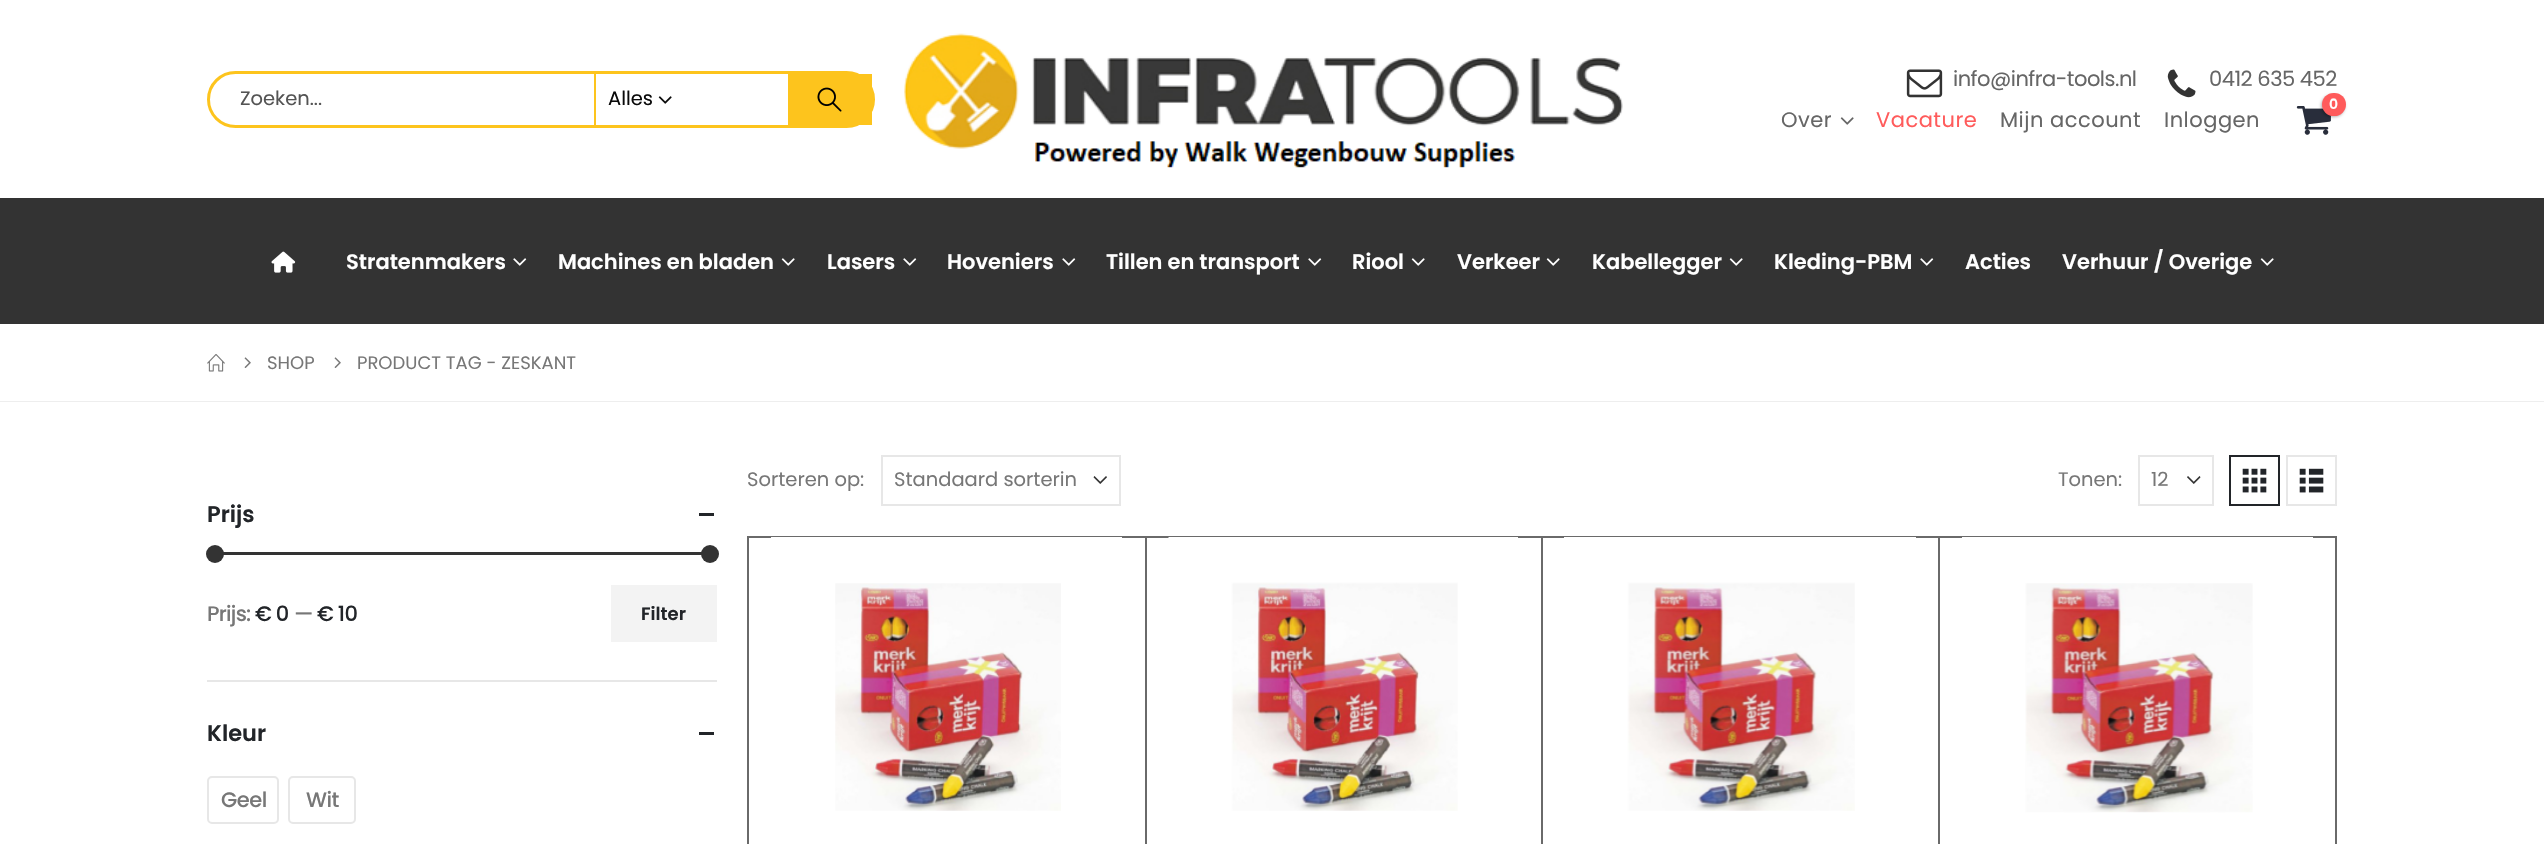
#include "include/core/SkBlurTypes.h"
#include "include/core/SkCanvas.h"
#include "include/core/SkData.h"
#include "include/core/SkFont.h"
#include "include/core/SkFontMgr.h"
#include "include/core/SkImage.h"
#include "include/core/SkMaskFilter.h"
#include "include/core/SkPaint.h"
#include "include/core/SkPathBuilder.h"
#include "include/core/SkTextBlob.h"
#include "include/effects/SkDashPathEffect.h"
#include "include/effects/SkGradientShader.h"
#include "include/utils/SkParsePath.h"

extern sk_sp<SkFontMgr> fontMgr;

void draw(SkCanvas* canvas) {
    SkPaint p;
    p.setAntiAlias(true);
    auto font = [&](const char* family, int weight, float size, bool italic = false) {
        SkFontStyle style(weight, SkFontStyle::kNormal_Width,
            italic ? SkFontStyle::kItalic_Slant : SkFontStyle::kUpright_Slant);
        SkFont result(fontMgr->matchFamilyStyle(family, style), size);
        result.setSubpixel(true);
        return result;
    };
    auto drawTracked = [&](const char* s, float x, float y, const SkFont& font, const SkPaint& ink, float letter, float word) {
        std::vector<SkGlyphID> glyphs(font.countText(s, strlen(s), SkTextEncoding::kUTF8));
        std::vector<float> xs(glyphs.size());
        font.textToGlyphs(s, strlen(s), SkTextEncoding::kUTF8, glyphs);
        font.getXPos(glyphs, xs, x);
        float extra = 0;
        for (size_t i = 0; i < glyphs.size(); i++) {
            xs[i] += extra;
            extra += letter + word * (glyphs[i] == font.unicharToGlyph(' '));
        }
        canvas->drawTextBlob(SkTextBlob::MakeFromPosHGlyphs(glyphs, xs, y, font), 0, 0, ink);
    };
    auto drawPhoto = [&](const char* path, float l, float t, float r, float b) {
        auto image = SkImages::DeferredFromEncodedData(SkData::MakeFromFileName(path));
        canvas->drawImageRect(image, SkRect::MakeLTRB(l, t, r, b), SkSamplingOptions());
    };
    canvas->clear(0xFFFFFFFF);
    p.setStyle(SkPaint::kStroke_Style);
    p.setStrokeWidth(3);
    p.setColor(0xFFFDC41D);
    canvas->drawRoundRect(SkRect::MakeLTRB(208.5f, 72.5f, 873.5f, 126.5f), 27, 27, p);
    auto font1 = font("Poppins", 400, 19.5f);
    p.setStyle(SkPaint::kFill_Style);
    p.setColor(0xFF545454);
    canvas->drawString("Zoeken...", 240, 105, font1, p);
    p.setColor(0xFFFDC41D);
    canvas->drawRect(SkRect::MakeLTRB(594, 74, 596, 125), p);
    p.setColor(0xFF0A0A0A);
    canvas->drawString("Alles", 608, 105, font1, p);
    drawPhoto("media/1.png", 658, 96, 672, 104);
    p.setColor(0xFFFDC41D);
    canvas->drawRect(SkRect::MakeLTRB(788, 74, 872, 125), p);
    drawPhoto("media/2.png", 817, 87, 842, 112);
    drawPhoto("media/3.png", 904, 33, 1623, 168);
    drawPhoto("media/4.png", 1906, 69, 1943, 98);
    auto font2 = font("Poppins", 400, 21);
    p.setColor(0xFF666666);
    drawTracked("info@infra-tools.nl", 1953, 86, font2, p, -0.5f, 0);
    drawPhoto("media/5.png", 2167, 69, 2196, 98);
    drawTracked("0412 635 452", 2209, 86, font2, p, -0.5f, 0);
    drawPhoto("media/6.png", 2296, 106, 2331, 135);
    p.setColor(0x4D000000);
    p.setMaskFilter(SkMaskFilter::MakeBlur(kNormal_SkBlurStyle, 1.5f));
    canvas->drawRoundRect(SkRect::MakeLTRB(2321, 95, 2345, 117), 11, 11, p);
    p.setMaskFilter(nullptr);
    p.setColor(0xFFFF5B5B);
    canvas->drawRoundRect(SkRect::MakeLTRB(2322, 93, 2346, 116), 11.5f, 11.5f, p);
    auto font3 = font("Poppins", 600, 14);
    p.setColor(0xFFFFFFFF);
    drawTracked("0", 2329, 109, font3, p, 0.5f, 0);
    p.setColor(0xFF666666);
    drawTracked("Over", 1781, 127, font2, p, 0.5f, 0);
    drawPhoto("media/7.png", 1840, 117, 1854, 125);
    p.setColor(0xFFFF5B5B);
    drawTracked("Vacature", 1876, 127, font2, p, 0.5f, 0);
    p.setColor(0xFF666666);
    drawTracked("Mijn account", 2000, 127, font2, p, 0.5f, 0);
    drawTracked("Inloggen", 2164, 127, font2, p, 0.5f, 0);
    p.setColor(0xFF333333);
    canvas->drawRect(SkRect::MakeLTRB(0, 198, 2544, 324), p);
    drawPhoto("media/8.png", 271, 251, 296, 273);
    auto font4 = font("Poppins", 600, 21);
    p.setColor(0xFFFFFFFF);
    canvas->drawString("Stratenmakers", 346, 269, font4, p);
    drawPhoto("media/9.png", 513, 258, 527, 266);
    canvas->drawString("Machines en bladen", 558, 269, font4, p);
    drawPhoto("media/10.png", 781, 258, 795, 266);
    canvas->drawString("Lasers", 827, 269, font4, p);
    drawPhoto("media/9.png", 903, 258, 917, 266);
    canvas->drawString("Hoveniers", 947, 269, font4, p);
    drawPhoto("media/9.png", 1062, 258, 1076, 266);
    canvas->drawString("Tillen en transport", 1106, 269, font4, p);
    drawPhoto("media/9.png", 1308, 258, 1322, 266);
    canvas->drawString("Riool", 1352, 269, font4, p);
    drawPhoto("media/10.png", 1411, 258, 1425, 266);
    canvas->drawString("Verkeer", 1457, 269, font4, p);
    drawPhoto("media/10.png", 1546, 258, 1560, 266);
    canvas->drawString("Kabellegger", 1592, 269, font4, p);
    drawPhoto("media/10.png", 1729, 258, 1743, 266);
    canvas->drawString("Kleding-PBM", 1774, 269, font4, p);
    drawPhoto("media/9.png", 1920, 258, 1934, 266);
    canvas->drawString("Acties", 1965, 269, font4, p);
    canvas->drawString("Verhuur / Overige", 2062, 269, font4, p);
    drawPhoto("media/10.png", 2260, 258, 2274, 266);
    p.setColor(0xFFEEEEEE);
    canvas->drawRect(SkRect::MakeLTRB(0, 401, 2544, 402), p);
    drawPhoto("media/11.png", 207, 354, 225, 372);
    drawPhoto("media/12.png", 244, 357, 251, 368);
    auto font5 = font("Poppins", 400, 18);
    p.setColor(0xFF777777);
    canvas->drawString("SHOP", 267, 369, font5, p);
    drawPhoto("media/12.png", 334, 357, 341, 368);
    canvas->drawString("PRODUCT TAG - ZESKANT", 357, 369, font5, p);
    canvas->drawString("Sorteren op:", 747, 486, font1, p);
    drawPhoto("media/13.png", 1093, 476, 1107, 484);
    p.setStyle(SkPaint::kStroke_Style);
    p.setStrokeWidth(2);
    p.setColor(0xFFE7E7E7);
    canvas->drawRect(SkRect::MakeLTRB(882, 456, 1120, 505), p);
    p.setStyle(SkPaint::kFill_Style);
    p.setColor(0xFF777777);
    canvas->drawString("Standaard sorterin", 894, 486, font1, p);
    canvas->drawString("Tonen:", 2058, 486, font1, p);
    drawPhoto("media/14.png", 2187, 476, 2201, 484);
    p.setStyle(SkPaint::kStroke_Style);
    p.setColor(0xFFE7E7E7);
    canvas->drawRect(SkRect::MakeLTRB(2139, 456, 2213, 505), p);
    p.setStyle(SkPaint::kFill_Style);
    p.setColor(0xFF777777);
    canvas->drawString("12", 2151, 486, font1, p);
    p.setStyle(SkPaint::kStroke_Style);
    p.setColor(0xFF222529);
    canvas->drawRect(SkRect::MakeLTRB(2230, 456, 2279, 505), p);
    drawPhoto("media/15.png", 2242, 468, 2267, 493);
    p.setColor(0xFFE7E7E7);
    canvas->drawRect(SkRect::MakeLTRB(2287, 456, 2336, 505), p);
    drawPhoto("media/16.png", 2299, 468, 2324, 493);
    p.setColor(0xFF6A6A6A);
    canvas->drawRect(SkRect::MakeLTRB(748, 537, 2336, 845), p);
    p.setStyle(SkPaint::kFill_Style);
    canvas->drawRect(SkRect::MakeLTRB(1145, 537, 1147, 844), p);
    p.setColor(0xFFFFFFFF);
    canvas->drawRect(SkRect::MakeLTRB(771, 537, 1122, 538), p);
    drawPhoto("media/17.png", 835, 583, 1061, 811);
    p.setColor(0xFF6A6A6A);
    canvas->drawRect(SkRect::MakeLTRB(1541, 537, 1543, 844), p);
    p.setColor(0xFFFFFFFF);
    canvas->drawRect(SkRect::MakeLTRB(1169, 537, 1518, 538), p);
    drawPhoto("media/18.png", 1168, 537, 1458, 811);
    p.setColor(0xFF6A6A6A);
    canvas->drawRect(SkRect::MakeLTRB(1938, 537, 1940, 844), p);
    p.setColor(0xFFFFFFFF);
    canvas->drawRect(SkRect::MakeLTRB(1565, 537, 1916, 538), p);
    drawPhoto("media/19.png", 1564, 537, 1855, 811);
    canvas->drawRect(SkRect::MakeLTRB(1962, 537, 2313, 538), p);
    drawPhoto("media/20.png", 2025, 583, 2253, 813);
    p.setColor(0xFFE7E7E7);
    canvas->drawRect(SkRect::MakeLTRB(207, 680, 717, 682), p);
    auto font6 = font("Poppins", 600, 22.5f);
    p.setColor(0xFF222529);
    canvas->drawString("Prijs", 207, 522, font6, p);
    canvas->drawRect(SkRect::MakeLTRB(699, 513, 714, 516), p);
    p.setColor(0xFF333333);
    canvas->drawRect(SkRect::MakeLTRB(215, 552, 710, 555), p);
    canvas->drawCircle(215, 554, 9, p);
    canvas->drawCircle(710, 554, 9, p);
    auto font7 = font("Poppins", 500, 21);
    p.setColor(0xFF777777);
    drawTracked("Prijs:", 207, 621, font7, p, -0.75f, 0);
    p.setColor(0xFF222529);
    drawTracked("€ 0", 255, 621, font7, p, -0.75f, 0);
    p.setColor(0xFF777777);
    drawTracked("—", 294, 621, font7, p, -0.75f, 0);
    p.setColor(0xFF222529);
    drawTracked("€ 10", 317, 621, font7, p, -0.75f, 0);
    p.setColor(0xFFF3F3F3);
    canvas->drawRect(SkRect::MakeLTRB(611, 585, 717, 642), p);
    auto font8 = font("Poppins", 600, 18);
    p.setColor(0xFF222529);
    canvas->drawString("Filter", 641, 620, font8, p);
    canvas->drawString("Kleur", 207, 741, font6, p);
    canvas->drawRect(SkRect::MakeLTRB(699, 732, 714, 735), p);
    p.setStyle(SkPaint::kStroke_Style);
    p.setColor(0xFFE7E7E7);
    canvas->drawRoundRect(SkRect::MakeLTRB(208, 777, 278, 823), 4, 4, p);
    p.setStyle(SkPaint::kFill_Style);
    p.setColor(0xFF777777);
    drawTracked("Geel", 221, 807, font7, p, -0.5f, 0);
    p.setStyle(SkPaint::kStroke_Style);
    p.setColor(0xFFE7E7E7);
    canvas->drawRoundRect(SkRect::MakeLTRB(289, 777, 355, 823), 4, 4, p);
    p.setStyle(SkPaint::kFill_Style);
    p.setColor(0xFF777777);
    drawTracked("Wit", 306, 807, font7, p, -0.5f, 0);
}
